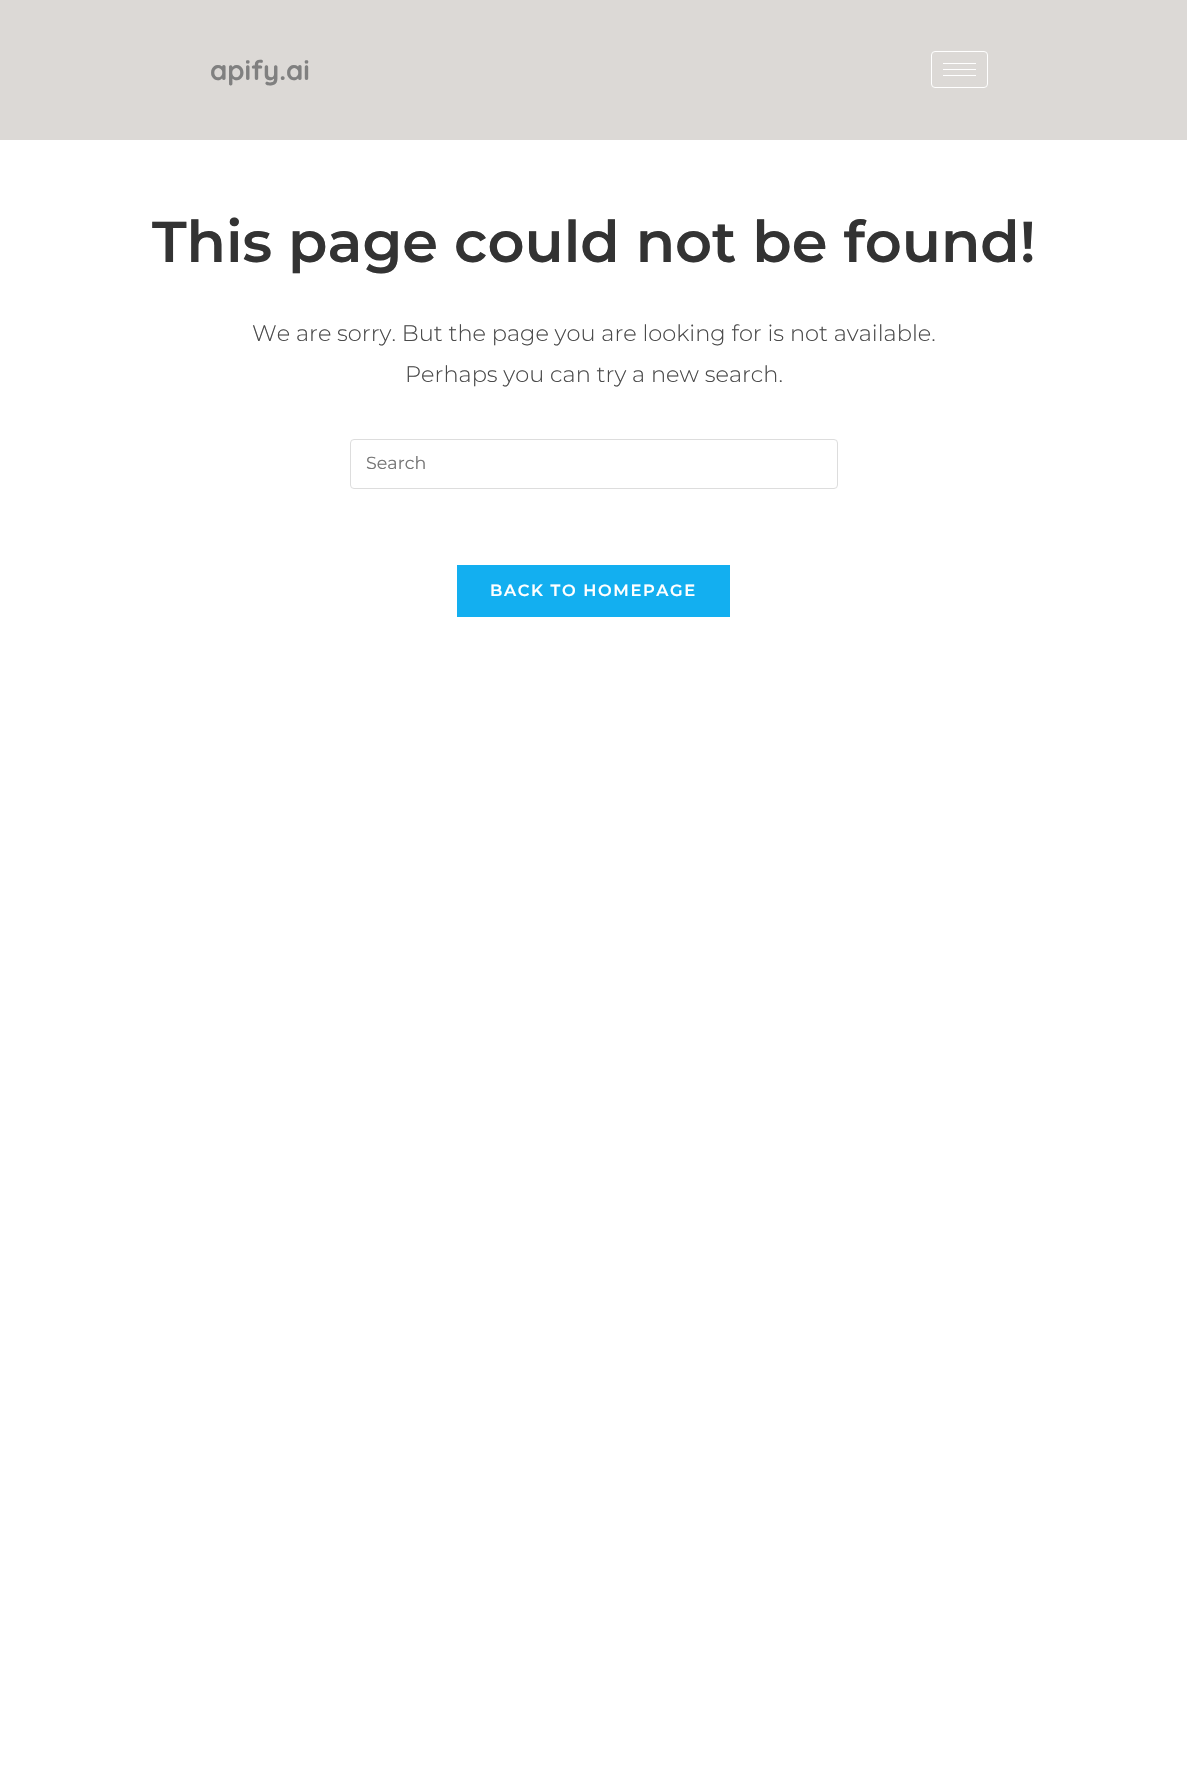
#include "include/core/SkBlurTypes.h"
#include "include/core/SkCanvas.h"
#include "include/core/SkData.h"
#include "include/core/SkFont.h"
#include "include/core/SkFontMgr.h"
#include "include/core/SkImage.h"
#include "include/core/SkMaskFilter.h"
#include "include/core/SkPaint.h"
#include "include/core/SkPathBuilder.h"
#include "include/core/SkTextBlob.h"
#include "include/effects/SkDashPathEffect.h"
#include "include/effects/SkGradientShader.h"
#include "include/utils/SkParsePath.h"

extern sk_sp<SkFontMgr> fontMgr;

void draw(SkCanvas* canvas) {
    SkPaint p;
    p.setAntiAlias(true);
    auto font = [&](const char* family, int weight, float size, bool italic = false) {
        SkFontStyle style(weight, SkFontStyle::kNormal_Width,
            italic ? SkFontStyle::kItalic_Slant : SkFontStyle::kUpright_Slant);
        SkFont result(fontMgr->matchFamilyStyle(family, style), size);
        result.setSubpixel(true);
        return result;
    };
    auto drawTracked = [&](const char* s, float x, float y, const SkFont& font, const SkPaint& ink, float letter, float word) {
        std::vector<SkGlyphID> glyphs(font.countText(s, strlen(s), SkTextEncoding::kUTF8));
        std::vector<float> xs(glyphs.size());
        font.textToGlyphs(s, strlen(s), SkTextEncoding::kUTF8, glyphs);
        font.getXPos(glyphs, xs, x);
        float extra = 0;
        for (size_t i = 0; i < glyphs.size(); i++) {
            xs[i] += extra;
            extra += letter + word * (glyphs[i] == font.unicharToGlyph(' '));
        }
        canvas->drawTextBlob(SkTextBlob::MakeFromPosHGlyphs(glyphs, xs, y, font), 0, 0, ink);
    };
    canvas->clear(0xFFFFFFFF);
    p.setColor(0xFFDCD9D6);
    canvas->drawRect(SkRect::MakeLTRB(0, 0, 1187, 140), p);
    auto font1 = font("Quicksand", 700, 27.5f);
    p.setColor(0xFF808080);
    canvas->drawString("apify.ai", 210, 80, font1, p);
    p.setStyle(SkPaint::kStroke_Style);
    p.setStrokeWidth(1);
    p.setColor(0xFFFFFFFF);
    canvas->drawRoundRect(SkRect::MakeLTRB(931.5f, 51.5f, 987.5f, 87.5f), 3.5f, 3.5f, p);
    p.setStyle(SkPaint::kFill_Style);
    {
        const struct { float l, t, r, b; SkColor color; } items[] = {
            {943, 63, 976, 64, 0xFFFFFFFF},
            {943, 69, 976, 70, 0xFFFFFFFF},
            {943, 75, 976, 76, 0xFFFFFFFF},
        };
        for (auto [l, t, r, b, color] : items) {
            p.setColor(color);
            canvas->drawRect(SkRect::MakeLTRB(l, t, r, b), p);
        }
    }
    auto font2 = font("Montserrat", 600, 57.5f);
    p.setColor(0xFF333333);
    canvas->drawString("This page could not be found!", 152, 262, font2, p);
    auto font3 = font("Montserrat", 300, 22.5f);
    p.setColor(0xFF4A4A4A);
    canvas->drawString("We are sorry. But the page you are looking for is not available.", 252, 341, font3, p);
    canvas->drawString("Perhaps you can try a new search.", 405, 382, font3, p);
    p.setStyle(SkPaint::kStroke_Style);
    p.setColor(0xFFDDDDDD);
    canvas->drawRoundRect(SkRect::MakeLTRB(350.5f, 439.5f, 837.5f, 488.5f), 3.5f, 3.5f, p);
    auto font4 = font("Montserrat", 400, 17.5f);
    p.setStyle(SkPaint::kFill_Style);
    p.setColor(0xFF757575);
    canvas->drawString("Search", 366, 469, font4, p);
    p.setColor(0xFF13AFF0);
    canvas->drawRect(SkRect::MakeLTRB(457, 565, 730, 617), p);
    auto font5 = font("Montserrat", 600, 16.25f);
    p.setColor(0xFFFFFFFF);
    drawTracked("BACK TO HOMEPAGE", 490, 596, font5, p, 1.6f, 0);
}
